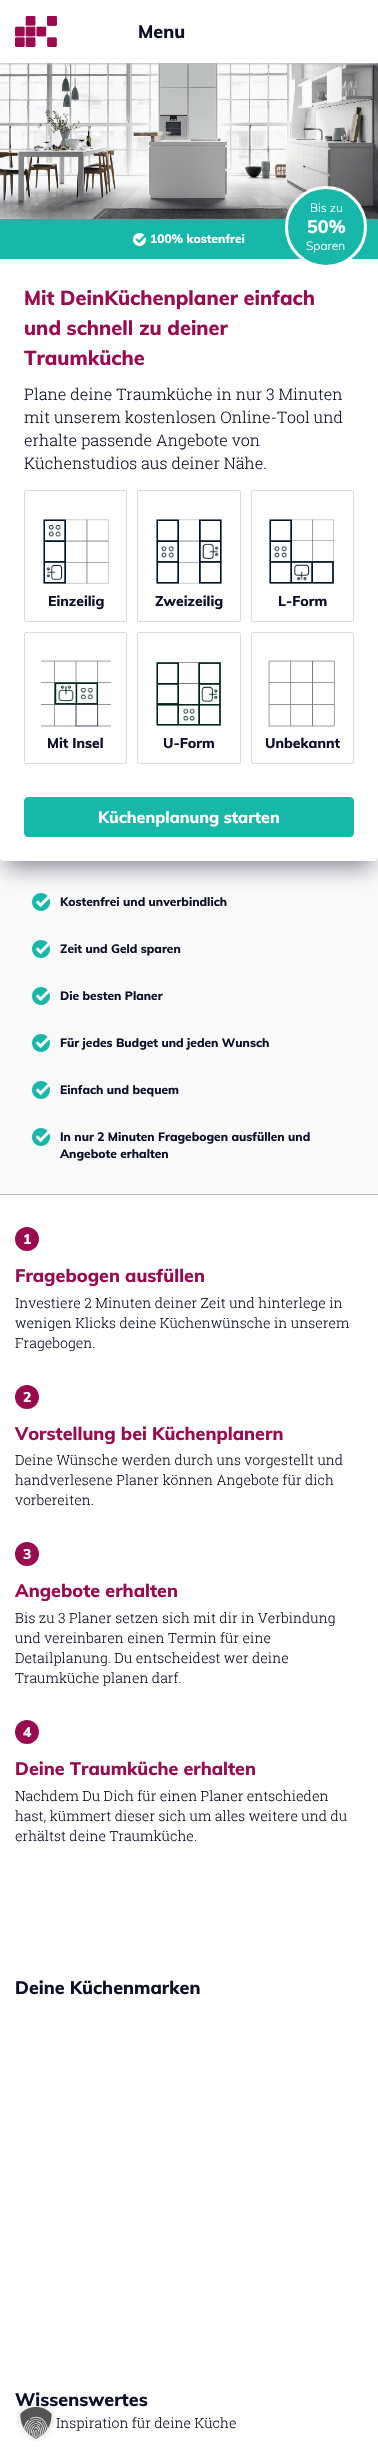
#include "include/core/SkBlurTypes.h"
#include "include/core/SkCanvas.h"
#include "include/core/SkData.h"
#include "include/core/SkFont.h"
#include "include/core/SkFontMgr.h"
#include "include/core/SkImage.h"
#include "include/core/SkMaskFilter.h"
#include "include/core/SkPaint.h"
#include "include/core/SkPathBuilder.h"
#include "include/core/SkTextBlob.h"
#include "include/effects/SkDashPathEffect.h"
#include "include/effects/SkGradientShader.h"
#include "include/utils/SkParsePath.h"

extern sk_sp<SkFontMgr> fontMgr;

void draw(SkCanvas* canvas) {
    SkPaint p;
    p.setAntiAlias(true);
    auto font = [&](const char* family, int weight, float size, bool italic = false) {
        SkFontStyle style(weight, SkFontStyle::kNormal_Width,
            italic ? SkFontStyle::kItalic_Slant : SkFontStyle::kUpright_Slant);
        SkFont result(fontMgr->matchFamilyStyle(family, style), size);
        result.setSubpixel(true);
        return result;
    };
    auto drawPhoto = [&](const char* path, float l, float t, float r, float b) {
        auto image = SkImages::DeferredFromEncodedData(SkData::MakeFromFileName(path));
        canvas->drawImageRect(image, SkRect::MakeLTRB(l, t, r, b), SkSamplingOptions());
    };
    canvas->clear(0xFFFFFFFF);
    drawPhoto("media/2.png", 0, 63, 378, 219);
    p.setColor(0xFFB6B9BF);
    p.setMaskFilter(SkMaskFilter::MakeBlur(kNormal_SkBlurStyle, 1));
    canvas->drawRect(SkRect::MakeLTRB(0, 1, 378, 64), p);
    p.setMaskFilter(nullptr);
    p.setColor(0xFFFFFFFF);
    canvas->drawRect(SkRect::MakeLTRB(0, 0, 378, 63), p);
    drawPhoto("media/1.png", 15, 16, 57, 47);
    auto font1 = font("Muli", 800, 18);
    p.setColor(0xFF0C0F27);
    canvas->drawString("Menu", 138, 38, font1, p);
    p.setColor(0xFFF9F9F9);
    canvas->drawRect(SkRect::MakeLTRB(0, 861, 378, 1194), p);
    drawPhoto("media/10.png", 32, 893, 50, 911);
    p.setColor(0x800C0F27);
    p.setMaskFilter(SkMaskFilter::MakeBlur(kNormal_SkBlurStyle, 11));
    canvas->drawRect(SkRect::MakeLTRB(6, 277, 372, 867), p);
    p.setMaskFilter(nullptr);
    p.setColor(0xFF17B8A9);
    canvas->drawRect(SkRect::MakeLTRB(0, 219, 378, 259), p);
    drawPhoto("media/3.png", 133, 233, 146, 246);
    auto font2 = font("Muli", 800, 12);
    p.setColor(0xFFFFFFFF);
    canvas->drawString("100% kostenfrei", 150, 243, font2, p);
    canvas->drawPath(SkPathBuilder().moveTo(0, 259).lineTo(378, 259).lineTo(378, 857).cubicTo(378, 859, 376, 861, 374, 861).lineTo(4, 861).cubicTo(2, 861, 0, 859, 0, 857).close().detach(), p);
    p.setColor(0xFF17B8A9);
    canvas->drawCircle(326, 227, 39.5f, p);
    p.setStyle(SkPaint::kStroke_Style);
    p.setStrokeWidth(3);
    p.setColor(0xFFFFFFFF);
    canvas->drawCircle(326, 227, 39.5f, p);
    auto font3 = font("Muli", 300, 12);
    p.setStyle(SkPaint::kFill_Style);
    canvas->drawString("Bis zu", 310, 212, font3, p);
    canvas->drawString("50%", 307, 233, font1, p);
    canvas->drawString("Sparen", 306, 250, font3, p);
    auto font4 = font("Muli", 800, 20);
    p.setColor(0xFF9B094F);
    {
        const struct { const char* s; float x, y; } items[] = {
            {"Mit DeinKüchenplaner einfach", 24, 305},
            {"und schnell zu deiner", 24, 335},
            {"Traumküche", 24, 365},
        };
        for (auto [s, x, y] : items) {
            canvas->drawString(s, x, y, font4, p);
        }
    }
    auto font5 = font("Roboto Slab", 300, 16);
    p.setColor(0xFF0C0F27);
    {
        const struct { const char* s; float x, y; } items[] = {
            {"Plane deine Traumküche in nur 3 Minuten", 24, 400},
            {"mit unserem kostenlosen Online-Tool und", 24, 423},
            {"erhalte passende Angebote von", 24, 446},
            {"Küchenstudios aus deiner Nähe.", 24, 469},
        };
        for (auto [s, x, y] : items) {
            canvas->drawString(s, x, y, font5, p);
        }
    }
    p.setStyle(SkPaint::kStroke_Style);
    p.setStrokeWidth(1);
    p.setColor(0xFFDBDCDF);
    canvas->drawRoundRect(SkRect::MakeLTRB(24.5f, 490.5f, 126.5f, 621.5f), 1.5f, 1.5f, p);
    drawPhoto("media/4.png", 43, 519, 109, 584);
    auto font6 = font("Muli", 800, 14);
    p.setStyle(SkPaint::kFill_Style);
    p.setColor(0xFF0C0F27);
    canvas->drawString("Einzeilig", 48, 606, font6, p);
    p.setStyle(SkPaint::kStroke_Style);
    p.setColor(0xFFDBDCDF);
    canvas->drawRoundRect(SkRect::MakeLTRB(137.5f, 490.5f, 240.5f, 621.5f), 1.5f, 1.5f, p);
    drawPhoto("media/5.png", 156, 519, 222, 584);
    p.setStyle(SkPaint::kFill_Style);
    p.setColor(0xFF0C0F27);
    canvas->drawString("Zweizeilig", 155, 606, font6, p);
    p.setStyle(SkPaint::kStroke_Style);
    p.setColor(0xFFDBDCDF);
    canvas->drawRoundRect(SkRect::MakeLTRB(251.5f, 490.5f, 353.5f, 621.5f), 1.5f, 1.5f, p);
    drawPhoto("media/6.png", 269, 519, 334, 584);
    p.setStyle(SkPaint::kFill_Style);
    p.setColor(0xFF0C0F27);
    canvas->drawString("L-Form", 278, 606, font6, p);
    p.setStyle(SkPaint::kStroke_Style);
    p.setColor(0xFFDBDCDF);
    canvas->drawRoundRect(SkRect::MakeLTRB(24.5f, 632.5f, 126.5f, 763.5f), 1.5f, 1.5f, p);
    drawPhoto("media/7.png", 41, 660, 111, 727);
    p.setStyle(SkPaint::kFill_Style);
    p.setColor(0xFF0C0F27);
    canvas->drawString("Mit Insel", 47, 748, font6, p);
    p.setStyle(SkPaint::kStroke_Style);
    p.setColor(0xFFDBDCDF);
    canvas->drawRoundRect(SkRect::MakeLTRB(137.5f, 632.5f, 240.5f, 763.5f), 1.5f, 1.5f, p);
    drawPhoto("media/8.png", 156, 662, 221, 726);
    p.setStyle(SkPaint::kFill_Style);
    p.setColor(0xFF0C0F27);
    canvas->drawString("U-Form", 163, 748, font6, p);
    p.setStyle(SkPaint::kStroke_Style);
    p.setColor(0xFFDBDCDF);
    canvas->drawRoundRect(SkRect::MakeLTRB(251.5f, 632.5f, 353.5f, 763.5f), 1.5f, 1.5f, p);
    drawPhoto("media/9.png", 268, 660, 335, 727);
    p.setStyle(SkPaint::kFill_Style);
    p.setColor(0xFF0C0F27);
    canvas->drawString("Unbekannt", 265, 748, font6, p);
    p.setColor(0xFF17B8A9);
    canvas->drawRoundRect(SkRect::MakeLTRB(24.5f, 797.5f, 353.5f, 836.5f), 3.5f, 3.5f, p);
    p.setStyle(SkPaint::kStroke_Style);
    canvas->drawRoundRect(SkRect::MakeLTRB(24.5f, 797.5f, 353.5f, 836.5f), 3.5f, 3.5f, p);
    auto font7 = font("Muli", 800, 16);
    p.setStyle(SkPaint::kFill_Style);
    p.setColor(0xFFFFFFFF);
    canvas->drawString("Küchenplanung starten", 98, 823, font7, p);
    p.setColor(0xFFB9BBBE);
    canvas->drawRect(SkRect::MakeLTRB(0, 1194, 378, 1195), p);
    p.setColor(0xFF0C0F27);
    canvas->drawString("Kostenfrei und unverbindlich", 60, 906, font2, p);
    drawPhoto("media/10.png", 32, 940, 50, 958);
    canvas->drawString("Zeit und Geld sparen", 60, 953, font2, p);
    drawPhoto("media/10.png", 32, 987, 50, 1005);
    canvas->drawString("Die besten Planer", 60, 1000, font2, p);
    drawPhoto("media/10.png", 32, 1034, 50, 1052);
    canvas->drawString("Für jedes Budget und jeden Wunsch", 60, 1047, font2, p);
    drawPhoto("media/10.png", 32, 1081, 50, 1099);
    canvas->drawString("Einfach und bequem", 60, 1094, font2, p);
    drawPhoto("media/10.png", 32, 1128, 50, 1146);
    canvas->drawString("In nur 2 Minuten Fragebogen ausfüllen und", 60, 1141, font2, p);
    canvas->drawString("Angebote erhalten", 60, 1158, font2, p);
    p.setColor(0xFF9B094F);
    canvas->drawCircle(27, 1239, 12, p);
    p.setColor(0xFFFFFFFF);
    canvas->drawString("1", 23, 1244, font6, p);
    p.setColor(0xFF9B094F);
    canvas->drawString("Fragebogen ausfüllen", 15, 1282, font1, p);
    auto font8 = font("Roboto Slab", 300, 14);
    p.setColor(0xFF0C0F27);
    {
        const struct { const char* s; float x, y; } items[] = {
            {"Investiere 2 Minuten deiner Zeit und hinterlege in", 15, 1308},
            {"wenigen Klicks deine Küchenwünsche in unserem", 15, 1328},
            {"Fragebogen.", 15, 1348},
        };
        for (auto [s, x, y] : items) {
            canvas->drawString(s, x, y, font8, p);
        }
    }
    p.setColor(0xFF9B094F);
    canvas->drawCircle(27, 1397, 12, p);
    p.setColor(0xFFFFFFFF);
    canvas->drawString("2", 23, 1402, font6, p);
    p.setColor(0xFF9B094F);
    canvas->drawString("Vorstellung bei Küchenplanern", 15, 1440, font1, p);
    p.setColor(0xFF0C0F27);
    {
        const struct { const char* s; float x, y; } items[] = {
            {"Deine Wünsche werden durch uns vorgestellt und", 15, 1465},
            {"handverlesene Planer können Angebote für dich", 15, 1485},
            {"vorbereiten.", 15, 1505},
        };
        for (auto [s, x, y] : items) {
            canvas->drawString(s, x, y, font8, p);
        }
    }
    p.setColor(0xFF9B094F);
    canvas->drawCircle(27, 1554, 12, p);
    p.setColor(0xFFFFFFFF);
    canvas->drawString("3", 23, 1559, font6, p);
    p.setColor(0xFF9B094F);
    canvas->drawString("Angebote erhalten", 15, 1597, font1, p);
    p.setColor(0xFF0C0F27);
    {
        const struct { const char* s; float x, y; } items[] = {
            {"Bis zu 3 Planer setzen sich mit dir in Verbindung", 15, 1623},
            {"und vereinbaren einen Termin für eine", 15, 1643},
            {"Detailplanung. Du entscheidest wer deine", 15, 1663},
            {"Traumküche planen darf.", 15, 1683},
        };
        for (auto [s, x, y] : items) {
            canvas->drawString(s, x, y, font8, p);
        }
    }
    p.setColor(0xFF9B094F);
    canvas->drawCircle(27, 1732, 12, p);
    p.setColor(0xFFFFFFFF);
    canvas->drawString("4", 23, 1737, font6, p);
    p.setColor(0xFF9B094F);
    canvas->drawString("Deine Traumküche erhalten", 15, 1775, font1, p);
    p.setColor(0xFF0C0F27);
    {
        const struct { const char* s; float x, y; } items[] = {
            {"Nachdem Du Dich für einen Planer entschieden", 15, 1801},
            {"hast, kümmert dieser sich um alles weitere und du", 15, 1821},
            {"erhältst deine Traumküche.", 15, 1841},
        };
        for (auto [s, x, y] : items) {
            canvas->drawString(s, x, y, font8, p);
        }
    }
    canvas->drawString("Deine Küchenmarken", 15, 1994, font1, p);
    canvas->drawString("Wissenswertes", 15, 2406, font1, p);
    canvas->drawString("Inspiration für deine Küche", 56, 2428, font8, p);
    drawPhoto("media/11.png", 16, 2402, 56, 2441);
}
